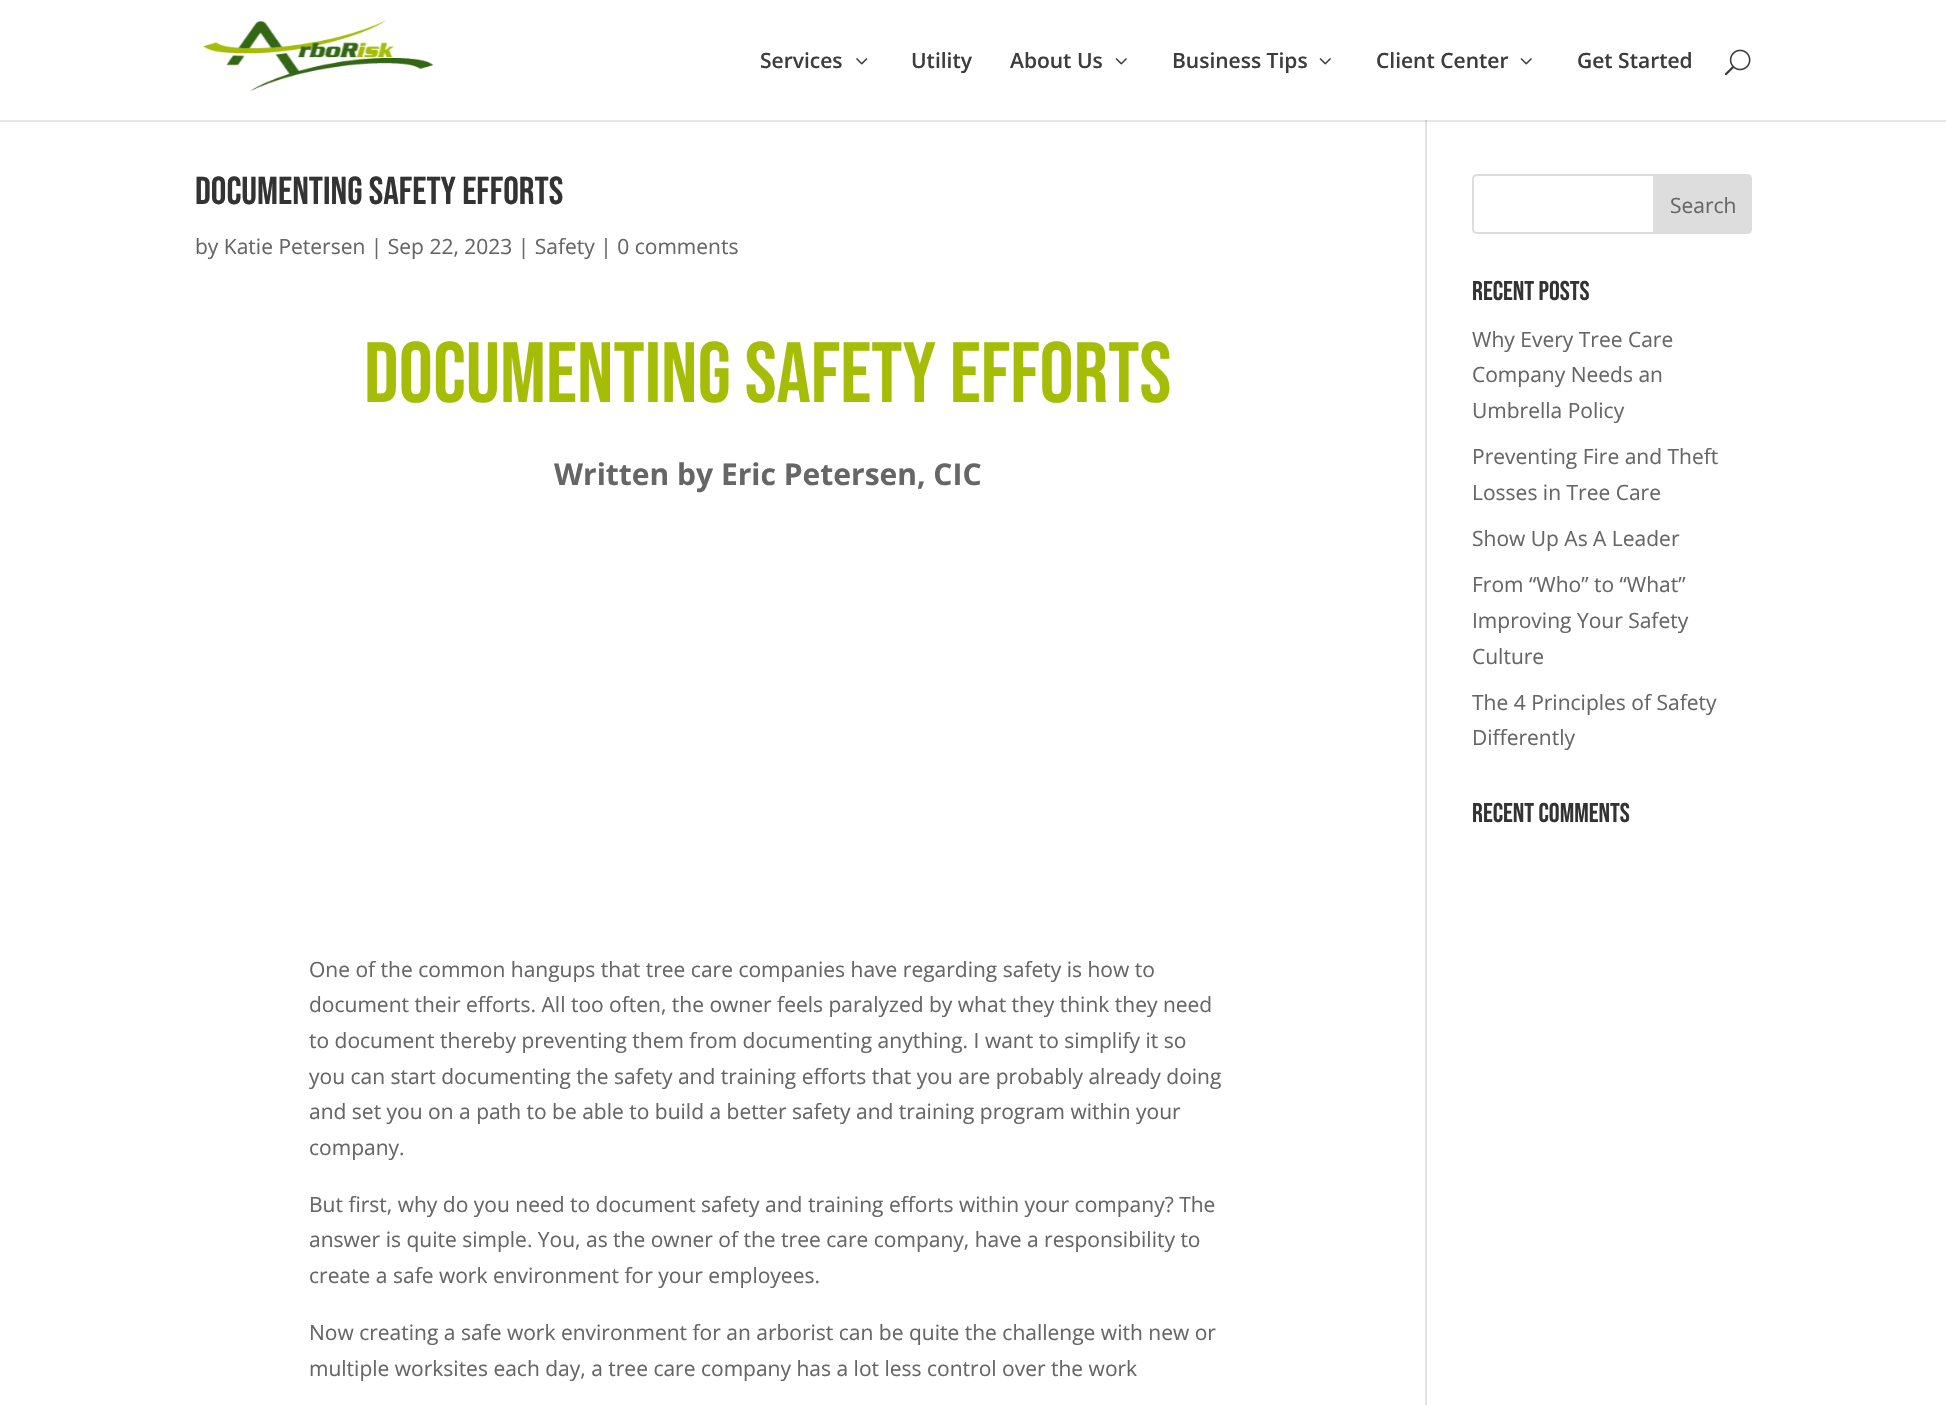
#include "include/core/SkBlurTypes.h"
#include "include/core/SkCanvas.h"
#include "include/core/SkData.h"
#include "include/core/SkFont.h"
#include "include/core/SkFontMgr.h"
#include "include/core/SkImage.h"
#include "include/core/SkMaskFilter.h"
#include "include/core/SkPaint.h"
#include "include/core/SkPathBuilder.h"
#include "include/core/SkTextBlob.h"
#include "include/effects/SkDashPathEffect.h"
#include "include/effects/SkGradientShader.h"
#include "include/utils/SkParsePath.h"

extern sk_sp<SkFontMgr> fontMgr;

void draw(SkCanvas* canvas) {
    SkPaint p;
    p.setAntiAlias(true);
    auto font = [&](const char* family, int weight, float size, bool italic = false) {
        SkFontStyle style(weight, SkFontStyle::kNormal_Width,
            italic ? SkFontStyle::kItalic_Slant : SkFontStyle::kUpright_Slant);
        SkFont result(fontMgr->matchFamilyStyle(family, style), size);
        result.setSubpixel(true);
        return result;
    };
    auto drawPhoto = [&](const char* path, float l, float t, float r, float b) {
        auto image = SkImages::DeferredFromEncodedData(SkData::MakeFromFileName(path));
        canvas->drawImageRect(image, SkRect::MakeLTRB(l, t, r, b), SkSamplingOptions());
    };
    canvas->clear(0xFFFFFFFF);
    p.setColor(0xFFE6E6E6);
    canvas->drawRect(SkRect::MakeLTRB(0, 120, 1946, 122), p);
    drawPhoto("media/1.png", 203, 20, 434, 92);
    auto font1 = font("Open Sans", 600, 21);
    p.setColor(0xFF3D3D3D);
    canvas->drawString("Services", 760, 68, font1, p);
    drawPhoto("media/2.png", 856, 58, 868, 65);
    canvas->drawString("Utility", 911, 68, font1, p);
    canvas->drawString("About Us", 1010, 68, font1, p);
    drawPhoto("media/3.png", 1115, 58, 1127, 65);
    canvas->drawString("Business Tips", 1172, 68, font1, p);
    drawPhoto("media/3.png", 1319, 58, 1331, 65);
    canvas->drawString("Client Center", 1376, 68, font1, p);
    drawPhoto("media/3.png", 1520, 58, 1532, 65);
    canvas->drawString("Get Started", 1577, 68, font1, p);
    drawPhoto("media/4.png", 1724, 49, 1751, 76);
    p.setColor(0xFFE2E2E2);
    canvas->drawRect(SkRect::MakeLTRB(1425, 122, 1427, 1405), p);
    p.setColor(0xFFCBCBCB);
    canvas->drawRect(SkRect::MakeLTRB(1425, 120, 1427, 122), p);
    auto font2 = font("Bebas Neue", 400, 39);
    p.setColor(0xFF333333);
    canvas->drawString("Documenting Safety Efforts", 195, 204, font2, p);
    auto font3 = font("Open Sans", 400, 21);
    p.setColor(0xFF666666);
    canvas->drawString("by Katie Petersen | Sep 22, 2023 | Safety | 0 comments", 195, 254, font3, p);
    auto font4 = font("Bebas Neue", 400, 85.5f);
    p.setColor(0xFFA6BD08);
    canvas->drawString("Documenting Safety Efforts", 364, 402, font4, p);
    auto font5 = font("Open Sans", 700, 30);
    p.setColor(0xFF666666);
    canvas->drawString("Written by Eric Petersen, CIC", 554, 485, font5, p);
    {
        const struct { const char* s; float x, y; } items[] = {
            {"One of the common hangups that tree care companies have regarding safety is how to", 309, 977},
            {"document their efforts. All too often, the owner feels paralyzed by what they think they need", 309, 1012},
            {"to document thereby preventing them from documenting anything. I want to simplify it so", 309, 1048},
            {"you can start documenting the safety and training efforts that you are probably already doing", 309, 1084},
            {"and set you on a path to be able to build a better safety and training program within your", 309, 1119},
            {"company.", 309, 1155},
            {"But first, why do you need to document safety and training efforts within your company? The", 309, 1212},
            {"answer is quite simple. You, as the owner of the tree care company, have a responsibility to", 309, 1247},
            {"create a safe work environment for your employees.", 309, 1283},
            {"Now creating a safe work environment for an arborist can be quite the challenge with new or", 309, 1340},
            {"multiple worksites each day, a tree care company has a lot less control over the work", 309, 1376},
        };
        for (auto [s, x, y] : items) {
            canvas->drawString(s, x, y, font3, p);
        }
    }
    p.setStyle(SkPaint::kStroke_Style);
    p.setStrokeWidth(2);
    p.setColor(0xFFDDDDDD);
    canvas->drawRoundRect(SkRect::MakeLTRB(1473, 175, 1751, 233), 4, 4, p);
    p.setStyle(SkPaint::kFill_Style);
    canvas->drawPath(SkPathBuilder().moveTo(1654, 175).lineTo(1747, 175).cubicTo(1749, 175, 1751, 177, 1751, 179).lineTo(1751, 229).cubicTo(1751, 231, 1749, 233, 1747, 233).lineTo(1654, 233).close().detach(), p);
    p.setStyle(SkPaint::kStroke_Style);
    canvas->drawPath(SkPathBuilder().moveTo(1654, 175).lineTo(1747, 175).cubicTo(1749, 175, 1751, 177, 1751, 179).lineTo(1751, 229).cubicTo(1751, 231, 1749, 233, 1747, 233).lineTo(1654, 233).close().detach(), p);
    p.setStyle(SkPaint::kFill_Style);
    p.setColor(0xFF666666);
    canvas->drawString("Search", 1670, 213, font3, p);
    auto font6 = font("Bebas Neue", 400, 27);
    p.setColor(0xFF333333);
    canvas->drawString("Recent Posts", 1472, 300, font6, p);
    p.setColor(0xFF666666);
    {
        const struct { const char* s; float x, y; } items[] = {
            {"Why Every Tree Care", 1472, 347},
            {"Company Needs an", 1472, 382},
            {"Umbrella Policy", 1472, 418},
            {"Preventing Fire and Theft", 1472, 464},
            {"Losses in Tree Care", 1472, 500},
            {"Show Up As A Leader", 1472, 546},
            {"From “Who” to “What”", 1472, 592},
            {"Improving Your Safety", 1472, 628},
            {"Culture", 1472, 664},
            {"The 4 Principles of Safety", 1472, 710},
            {"Differently", 1472, 745},
        };
        for (auto [s, x, y] : items) {
            canvas->drawString(s, x, y, font3, p);
        }
    }
    p.setColor(0xFF333333);
    canvas->drawString("Recent Comments", 1472, 822, font6, p);
}
